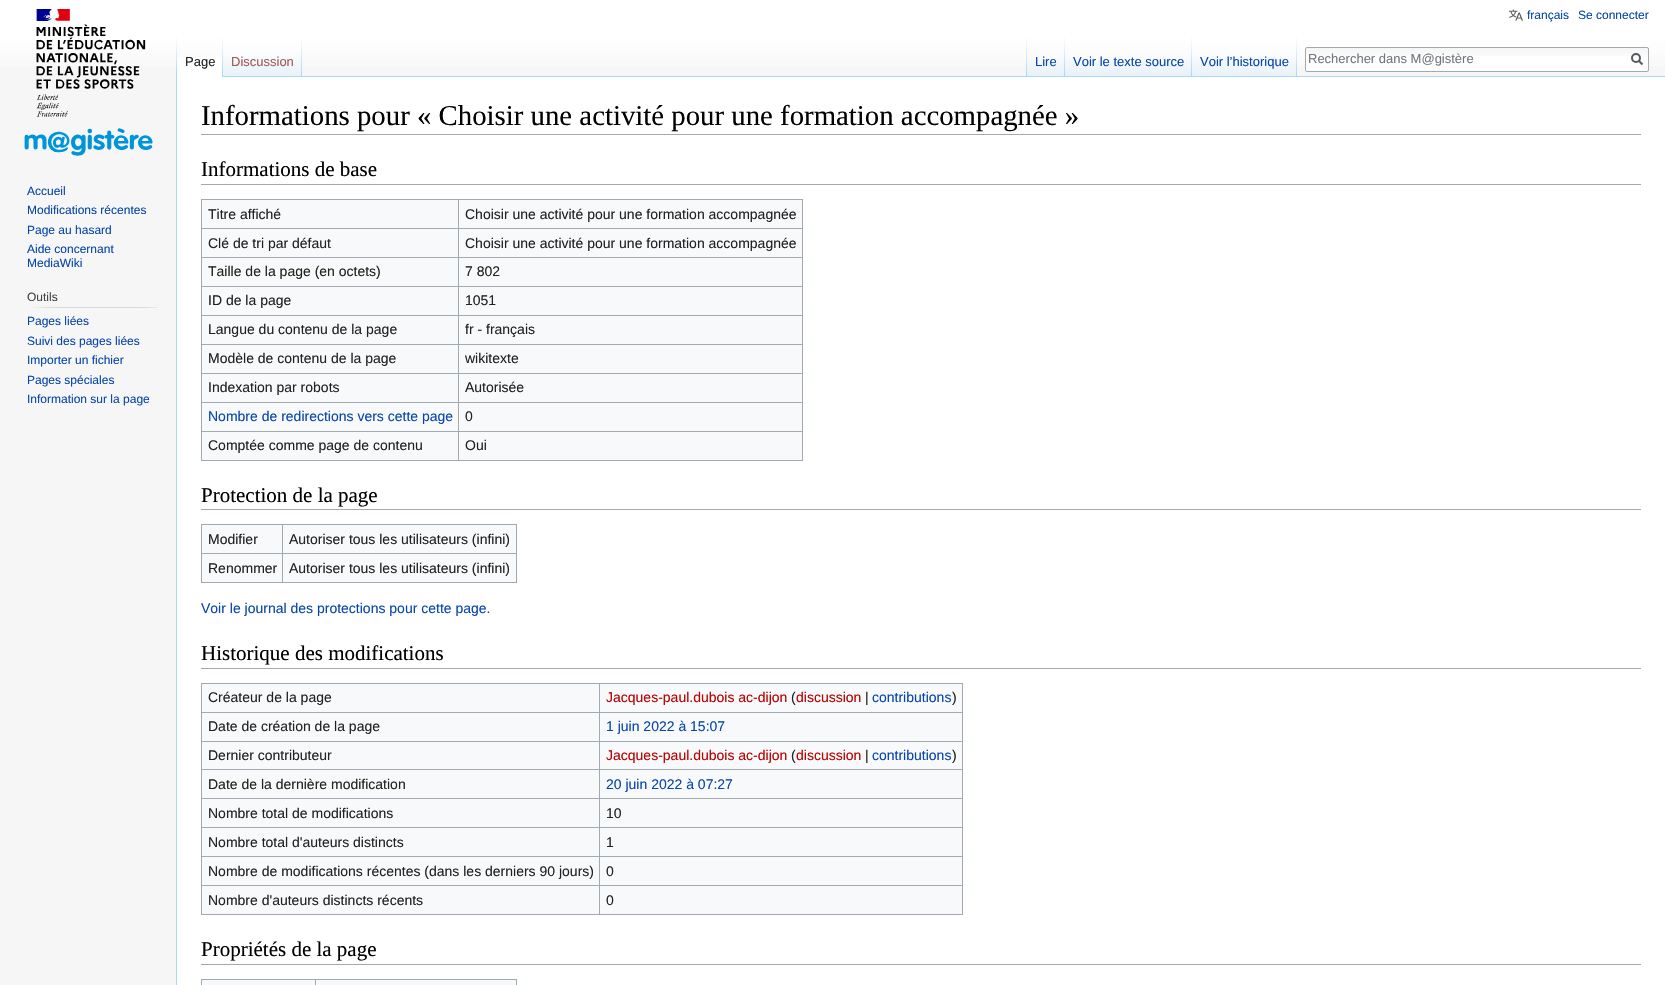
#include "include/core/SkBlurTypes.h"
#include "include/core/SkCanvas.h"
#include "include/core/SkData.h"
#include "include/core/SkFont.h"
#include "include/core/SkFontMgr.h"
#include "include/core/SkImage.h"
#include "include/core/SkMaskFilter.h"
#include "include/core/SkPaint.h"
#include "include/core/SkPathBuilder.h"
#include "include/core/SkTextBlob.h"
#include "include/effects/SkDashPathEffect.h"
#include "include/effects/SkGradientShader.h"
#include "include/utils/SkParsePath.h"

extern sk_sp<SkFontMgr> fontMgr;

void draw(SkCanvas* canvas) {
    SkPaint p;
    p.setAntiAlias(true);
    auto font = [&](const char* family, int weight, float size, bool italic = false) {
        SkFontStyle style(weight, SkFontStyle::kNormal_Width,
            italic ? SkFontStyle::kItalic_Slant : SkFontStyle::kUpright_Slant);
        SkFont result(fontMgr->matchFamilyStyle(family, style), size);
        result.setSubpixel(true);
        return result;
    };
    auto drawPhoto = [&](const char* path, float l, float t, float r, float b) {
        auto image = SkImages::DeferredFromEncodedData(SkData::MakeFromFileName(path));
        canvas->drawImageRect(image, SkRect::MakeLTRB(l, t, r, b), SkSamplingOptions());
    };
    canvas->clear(0xFFF6F6F6);
    {
        const SkColor colors[] = {0xFFFFFFFF, 0xFFF6F6F6};
        const float stops[] = {0.5f, 1};
        const SkPoint ends[] = {{833, -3}, {833, 77}};
        p.setShader(SkGradientShader::MakeLinear(ends, colors, stops, 2, SkTileMode::kClamp));
        p.setAlpha(255);
    }
    canvas->drawRect(SkRect::MakeLTRB(0, 0, 1665, 66), p);
    drawPhoto("media/1.png", 1509, 9, 1523, 21);
    auto font1 = font("Liberation Sans", 400, 12);
    p.setShader(nullptr);
    p.setColor(0xFF0645AD);
    canvas->drawString("français", 1527, 19, font1, p);
    canvas->drawString("Se connecter", 1578, 19, font1, p);
    drawPhoto("media/2.png", 176, 37, 177, 76);
    p.setColor(0xFFFFFFFF);
    canvas->drawRect(SkRect::MakeLTRB(177, 57, 222, 77), p);
    drawPhoto("media/3.png", 222, 37, 223, 77);
    auto font2 = font("Liberation Sans", 400, 13);
    p.setColor(0xFF222222);
    canvas->drawString("Page", 185, 66, font2, p);
    drawPhoto("media/4.png", 223, 37, 301, 76);
    drawPhoto("media/2.png", 301, 37, 302, 76);
    p.setColor(0xFFA55858);
    canvas->drawString("Discussion", 231, 66, font2, p);
    drawPhoto("media/2.png", 1026, 37, 1027, 76);
    drawPhoto("media/5.png", 1027, 59, 1064, 76);
    drawPhoto("media/2.png", 1064, 37, 1065, 76);
    p.setColor(0xFF0645AD);
    canvas->drawString("Lire", 1035, 66, font2, p);
    drawPhoto("media/6.png", 1065, 59, 1191, 76);
    drawPhoto("media/2.png", 1191, 37, 1192, 76);
    canvas->drawString("Voir le texte source", 1073, 66, font2, p);
    drawPhoto("media/7.png", 1192, 37, 1296, 76);
    drawPhoto("media/2.png", 1296, 37, 1297, 76);
    canvas->drawString("Voir l’historique", 1200, 66, font2, p);
    p.setColor(0xFFFFFFFF);
    canvas->drawRoundRect(SkRect::MakeLTRB(1305, 47, 1649, 72), 2, 2, p);
    drawPhoto("media/8.png", 1305, 48, 1649, 56);
    p.setStyle(SkPaint::kStroke_Style);
    p.setStrokeWidth(1);
    p.setColor(0xFFA2A9B1);
    canvas->drawRoundRect(SkRect::MakeLTRB(1305.5f, 47.5f, 1648.5f, 71.5f), 1.5f, 1.5f, p);
    p.setStyle(SkPaint::kFill_Style);
    p.setColor(0xFF72777D);
    canvas->drawString("Rechercher dans M@gistère", 1308, 63, font2, p);
    p.setStyle(SkPaint::kStroke_Style);
    p.setStrokeWidth(2);
    p.setColor(0xFF54595D);
    canvas->drawPath(SkPathBuilder().moveTo(1642.5f, 64.5f).lineTo(1638.5f, 60.5f).detach(), p);
    canvas->drawCircle(1636, 58, 4, p);
    drawPhoto("media/9.png", 24, 9, 153, 156);
    p.setStyle(SkPaint::kFill_Style);
    p.setColor(0xFF0645AD);
    {
        const struct { const char* s; float x, y; } items[] = {
            {"Accueil", 27, 195},
            {"Modifications récentes", 27, 214},
            {"Page au hasard", 27, 234},
            {"Aide concernant", 27, 253},
            {"MediaWiki", 27, 267},
        };
        for (auto [s, x, y] : items) {
            canvas->drawString(s, x, y, font1, p);
        }
    }
    p.setColor(0xFF444444);
    canvas->drawString("Outils", 27, 301, font1, p);
    drawPhoto("media/10.png", 30, 307, 158, 308);
    p.setColor(0xFF0645AD);
    {
        const struct { const char* s; float x, y; } items[] = {
            {"Pages liées", 27, 325},
            {"Suivi des pages liées", 27, 345},
            {"Importer un fichier", 27, 364},
            {"Pages spéciales", 27, 384},
            {"Information sur la page", 27, 403},
        };
        for (auto [s, x, y] : items) {
            canvas->drawString(s, x, y, font1, p);
        }
    }
    {
        const struct { float l, t, r, b; SkColor color; } items[] = {
            {177, 77, 1665, 985, 0xFFFFFFFF},
            {223, 76, 1665, 77, 0xFFA7D7F9},
            {176, 76, 177, 985, 0xFFA7D7F9},
            {201, 134, 1641, 135, 0xFFA2A9B1},
        };
        for (auto [l, t, r, b, color] : items) {
            p.setColor(color);
            canvas->drawRect(SkRect::MakeLTRB(l, t, r, b), p);
        }
    }
    auto font3 = font("Liberation Serif", 400, 28.8f);
    p.setColor(0xFF000000);
    canvas->drawString("Informations pour « Choisir une activité pour une formation accompagnée »", 201, 125, font3, p);
    p.setColor(0xFFA2A9B1);
    canvas->drawRect(SkRect::MakeLTRB(201, 184, 1641, 185), p);
    auto font4 = font("Liberation Serif", 400, 21);
    p.setColor(0xFF000000);
    canvas->drawString("Informations de base", 201, 176, font4, p);
    {
        const struct { float l, t, r, b; SkColor color; } items[] = {
            {202, 200, 802, 460, 0xFFF8F9FA},
            {201, 199, 803, 200, 0xFFA2A9B1},
            {802, 199, 803, 461, 0xFFA2A9B1},
            {201, 460, 803, 461, 0xFFA2A9B1},
            {201, 199, 202, 461, 0xFFA2A9B1},
        };
        for (auto [l, t, r, b, color] : items) {
            p.setColor(color);
            canvas->drawRect(SkRect::MakeLTRB(l, t, r, b), p);
        }
    }
    auto font5 = font("Liberation Sans", 400, 14);
    p.setColor(0xFF222222);
    canvas->drawString("Titre affiché", 208, 219, font5, p);
    {
        const struct { float l, t, r, b; SkColor color; } items[] = {
            {458, 228, 803, 229, 0xFFA2A9B1},
            {458, 257, 803, 258, 0xFFA2A9B1},
            {458, 286, 803, 287, 0xFFA2A9B1},
            {458, 315, 803, 316, 0xFFA2A9B1},
            {458, 344, 803, 345, 0xFFA2A9B1},
            {458, 373, 803, 374, 0xFFA2A9B1},
            {458, 402, 803, 403, 0xFFA2A9B1},
            {458, 431, 803, 432, 0xFFA2A9B1},
            {458, 431, 459, 461, 0xFFA2A9B1},
            {201, 431, 459, 432, 0xFFA2A9B1},
            {458, 402, 459, 432, 0xFFA2A9B1},
            {201, 402, 459, 403, 0xFFA2A9B1},
            {458, 373, 459, 403, 0xFFA2A9B1},
            {201, 373, 459, 374, 0xFFA2A9B1},
            {458, 344, 459, 374, 0xFFA2A9B1},
            {201, 344, 459, 345, 0xFFA2A9B1},
            {458, 315, 459, 345, 0xFFA2A9B1},
            {201, 315, 459, 316, 0xFFA2A9B1},
            {458, 286, 459, 316, 0xFFA2A9B1},
            {201, 286, 459, 287, 0xFFA2A9B1},
            {458, 257, 459, 287, 0xFFA2A9B1},
            {201, 257, 459, 258, 0xFFA2A9B1},
            {458, 228, 459, 258, 0xFFA2A9B1},
            {201, 228, 459, 229, 0xFFA2A9B1},
            {458, 199, 459, 229, 0xFFA2A9B1},
        };
        for (auto [l, t, r, b, color] : items) {
            p.setColor(color);
            canvas->drawRect(SkRect::MakeLTRB(l, t, r, b), p);
        }
    }
    p.setColor(0xFF222222);
    {
        const struct { const char* s; float x, y; } items[] = {
            {"Choisir une activité pour une formation accompagnée", 465, 219},
            {"Clé de tri par défaut", 208, 248},
            {"Choisir une activité pour une formation accompagnée", 465, 248},
            {"Taille de la page (en octets)", 208, 276},
            {"7 802", 465, 276},
            {"ID de la page", 208, 305},
            {"1051", 465, 305},
            {"Langue du contenu de la page", 208, 334},
            {"fr - français", 465, 334},
            {"Modèle de contenu de la page", 208, 363},
            {"wikitexte", 465, 363},
            {"Indexation par robots", 208, 392},
            {"Autorisée", 465, 392},
        };
        for (auto [s, x, y] : items) {
            canvas->drawString(s, x, y, font5, p);
        }
    }
    p.setColor(0xFF0645AD);
    canvas->drawString("Nombre de redirections vers cette page", 208, 421, font5, p);
    p.setColor(0xFF222222);
    {
        const struct { const char* s; float x, y; } items[] = {
            {"0", 465, 421},
            {"Comptée comme page de contenu", 208, 450},
            {"Oui", 465, 450},
        };
        for (auto [s, x, y] : items) {
            canvas->drawString(s, x, y, font5, p);
        }
    }
    p.setColor(0xFFA2A9B1);
    canvas->drawRect(SkRect::MakeLTRB(201, 509, 1641, 510), p);
    p.setColor(0xFF000000);
    canvas->drawString("Protection de la page", 201, 502, font4, p);
    {
        const struct { float l, t, r, b; SkColor color; } items[] = {
            {202, 525, 516, 582, 0xFFF8F9FA},
            {201, 524, 517, 525, 0xFFA2A9B1},
            {516, 524, 517, 583, 0xFFA2A9B1},
            {201, 582, 517, 583, 0xFFA2A9B1},
            {201, 524, 202, 583, 0xFFA2A9B1},
        };
        for (auto [l, t, r, b, color] : items) {
            p.setColor(color);
            canvas->drawRect(SkRect::MakeLTRB(l, t, r, b), p);
        }
    }
    p.setColor(0xFF222222);
    canvas->drawString("Modifier", 208, 544, font5, p);
    {
        const struct { float l, t, r, b; SkColor color; } items[] = {
            {282, 553, 517, 554, 0xFFA2A9B1},
            {282, 553, 283, 583, 0xFFA2A9B1},
            {201, 553, 283, 554, 0xFFA2A9B1},
            {282, 524, 283, 554, 0xFFA2A9B1},
        };
        for (auto [l, t, r, b, color] : items) {
            p.setColor(color);
            canvas->drawRect(SkRect::MakeLTRB(l, t, r, b), p);
        }
    }
    p.setColor(0xFF222222);
    {
        const struct { const char* s; float x, y; } items[] = {
            {"Autoriser tous les utilisateurs (infini)", 289, 544},
            {"Renommer", 208, 573},
            {"Autoriser tous les utilisateurs (infini)", 289, 573},
        };
        for (auto [s, x, y] : items) {
            canvas->drawString(s, x, y, font5, p);
        }
    }
    p.setColor(0xFF0645AD);
    canvas->drawString("Voir le journal des protections pour cette page.", 201, 613, font5, p);
    p.setColor(0xFFA2A9B1);
    canvas->drawRect(SkRect::MakeLTRB(201, 668, 1641, 669), p);
    p.setColor(0xFF000000);
    canvas->drawString("Historique des modifications", 201, 660, font4, p);
    {
        const struct { float l, t, r, b; SkColor color; } items[] = {
            {202, 684, 962, 914, 0xFFF8F9FA},
            {201, 683, 963, 684, 0xFFA2A9B1},
            {962, 683, 963, 915, 0xFFA2A9B1},
            {201, 914, 963, 915, 0xFFA2A9B1},
            {201, 683, 202, 915, 0xFFA2A9B1},
        };
        for (auto [l, t, r, b, color] : items) {
            p.setColor(color);
            canvas->drawRect(SkRect::MakeLTRB(l, t, r, b), p);
        }
    }
    p.setColor(0xFF222222);
    canvas->drawString("Créateur de la page", 208, 702, font5, p);
    {
        const struct { float l, t, r, b; SkColor color; } items[] = {
            {599, 712, 963, 713, 0xFFA2A9B1},
            {599, 741, 963, 742, 0xFFA2A9B1},
            {599, 769, 963, 770, 0xFFA2A9B1},
            {599, 798, 963, 799, 0xFFA2A9B1},
            {599, 827, 963, 828, 0xFFA2A9B1},
            {599, 856, 963, 857, 0xFFA2A9B1},
            {599, 885, 963, 886, 0xFFA2A9B1},
            {599, 885, 600, 915, 0xFFA2A9B1},
            {201, 885, 600, 886, 0xFFA2A9B1},
            {599, 856, 600, 886, 0xFFA2A9B1},
            {201, 856, 600, 857, 0xFFA2A9B1},
            {599, 827, 600, 857, 0xFFA2A9B1},
            {201, 827, 600, 828, 0xFFA2A9B1},
            {599, 798, 600, 828, 0xFFA2A9B1},
            {201, 798, 600, 799, 0xFFA2A9B1},
            {599, 769, 600, 799, 0xFFA2A9B1},
            {201, 769, 600, 770, 0xFFA2A9B1},
            {599, 741, 600, 770, 0xFFA2A9B1},
            {201, 741, 600, 742, 0xFFA2A9B1},
            {599, 712, 600, 742, 0xFFA2A9B1},
            {201, 712, 600, 713, 0xFFA2A9B1},
            {599, 683, 600, 713, 0xFFA2A9B1},
        };
        for (auto [l, t, r, b, color] : items) {
            p.setColor(color);
            canvas->drawRect(SkRect::MakeLTRB(l, t, r, b), p);
        }
    }
    p.setColor(0xFFBA0000);
    canvas->drawString("Jacques-paul.dubois ac-dijon", 606, 702, font5, p);
    p.setColor(0xFF222222);
    canvas->drawString("(", 791, 702, font5, p);
    p.setColor(0xFFBA0000);
    canvas->drawString("discussion", 796, 702, font5, p);
    p.setColor(0xFF222222);
    canvas->drawString("|", 865, 702, font5, p);
    p.setColor(0xFF0645AD);
    canvas->drawString("contributions", 872, 702, font5, p);
    p.setColor(0xFF222222);
    canvas->drawString(")", 952, 702, font5, p);
    canvas->drawString("Date de création de la page", 208, 731, font5, p);
    p.setColor(0xFF0645AD);
    canvas->drawString("1 juin 2022 à 15:07", 606, 731, font5, p);
    p.setColor(0xFF222222);
    canvas->drawString("Dernier contributeur", 208, 760, font5, p);
    p.setColor(0xFFBA0000);
    canvas->drawString("Jacques-paul.dubois ac-dijon", 606, 760, font5, p);
    p.setColor(0xFF222222);
    canvas->drawString("(", 791, 760, font5, p);
    p.setColor(0xFFBA0000);
    canvas->drawString("discussion", 796, 760, font5, p);
    p.setColor(0xFF222222);
    canvas->drawString("|", 865, 760, font5, p);
    p.setColor(0xFF0645AD);
    canvas->drawString("contributions", 872, 760, font5, p);
    p.setColor(0xFF222222);
    canvas->drawString(")", 952, 760, font5, p);
    canvas->drawString("Date de la dernière modification", 208, 789, font5, p);
    p.setColor(0xFF0645AD);
    canvas->drawString("20 juin 2022 à 07:27", 606, 789, font5, p);
    p.setColor(0xFF222222);
    {
        const struct { const char* s; float x, y; } items[] = {
            {"Nombre total de modifications", 208, 818},
            {"10", 606, 818},
            {"Nombre total d'auteurs distincts", 208, 847},
            {"1", 606, 847},
            {"Nombre de modifications récentes (dans les derniers 90 jours)", 208, 876},
            {"0", 606, 876},
            {"Nombre d'auteurs distincts récents", 208, 905},
            {"0", 606, 905},
        };
        for (auto [s, x, y] : items) {
            canvas->drawString(s, x, y, font5, p);
        }
    }
    p.setColor(0xFFA2A9B1);
    canvas->drawRect(SkRect::MakeLTRB(201, 964, 1641, 965), p);
    p.setColor(0xFF000000);
    canvas->drawString("Propriétés de la page", 201, 956, font4, p);
    {
        const struct { float l, t, r, b; SkColor color; } items[] = {
            {201, 980, 517, 985, 0xFFF8F9FA},
            {201, 979, 517, 980, 0xFFA2A9B1},
            {516, 979, 517, 985, 0xFFA2A9B1},
            {201, 979, 202, 985, 0xFFA2A9B1},
            {315, 979, 316, 985, 0xFFA2A9B1},
        };
        for (auto [l, t, r, b, color] : items) {
            p.setColor(color);
            canvas->drawRect(SkRect::MakeLTRB(l, t, r, b), p);
        }
    }
}
